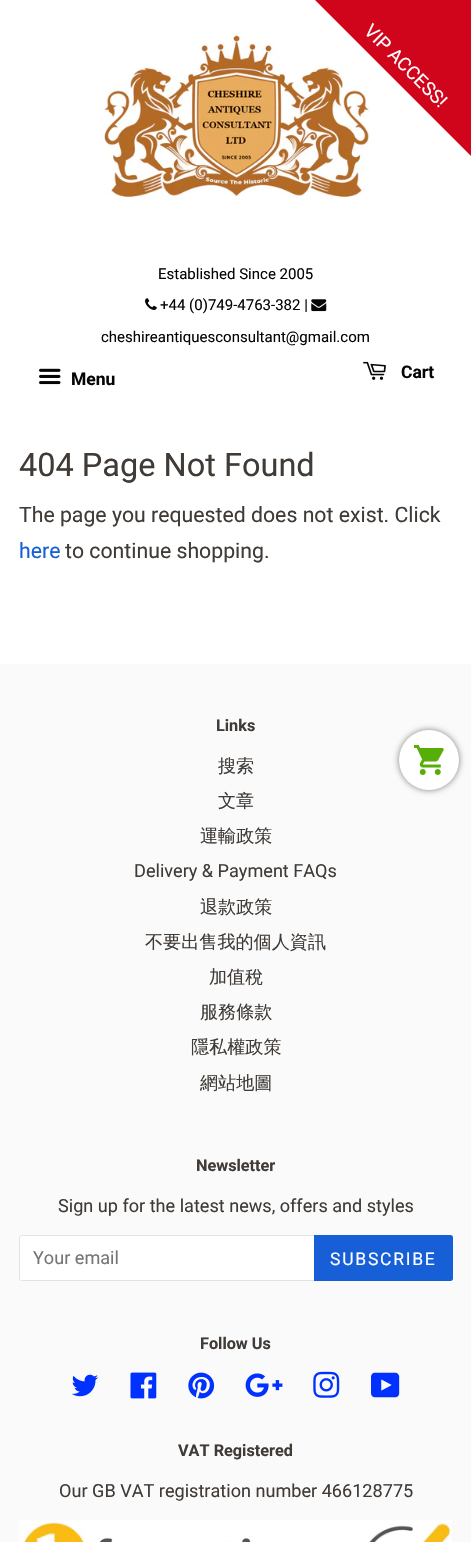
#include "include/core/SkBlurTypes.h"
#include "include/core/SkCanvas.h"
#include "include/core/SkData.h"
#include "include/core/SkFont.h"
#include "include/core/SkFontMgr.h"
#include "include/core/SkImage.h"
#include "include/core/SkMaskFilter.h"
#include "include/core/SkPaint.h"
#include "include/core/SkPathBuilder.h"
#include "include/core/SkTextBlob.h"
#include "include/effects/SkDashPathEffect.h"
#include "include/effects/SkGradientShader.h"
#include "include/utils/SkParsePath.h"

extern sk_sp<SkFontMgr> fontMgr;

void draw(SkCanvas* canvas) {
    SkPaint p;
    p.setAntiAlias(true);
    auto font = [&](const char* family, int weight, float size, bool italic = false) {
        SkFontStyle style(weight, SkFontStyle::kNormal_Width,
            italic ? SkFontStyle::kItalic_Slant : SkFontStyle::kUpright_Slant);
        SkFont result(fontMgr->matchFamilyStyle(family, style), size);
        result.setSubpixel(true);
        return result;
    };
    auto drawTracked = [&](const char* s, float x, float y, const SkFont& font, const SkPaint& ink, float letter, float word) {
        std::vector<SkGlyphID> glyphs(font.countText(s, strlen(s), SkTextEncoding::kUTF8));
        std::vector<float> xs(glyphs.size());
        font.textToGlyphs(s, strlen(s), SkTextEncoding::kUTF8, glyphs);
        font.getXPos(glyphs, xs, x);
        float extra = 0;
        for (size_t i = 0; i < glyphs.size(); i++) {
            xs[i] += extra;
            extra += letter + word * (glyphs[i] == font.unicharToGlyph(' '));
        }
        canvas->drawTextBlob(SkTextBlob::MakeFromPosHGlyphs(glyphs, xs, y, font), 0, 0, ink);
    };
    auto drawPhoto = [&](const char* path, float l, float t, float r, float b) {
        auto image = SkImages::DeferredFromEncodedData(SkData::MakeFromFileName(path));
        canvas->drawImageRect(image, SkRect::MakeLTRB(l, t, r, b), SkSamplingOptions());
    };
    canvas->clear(0xFFFFFFFF);
    drawPhoto("media/1.png", 101, 31, 370, 200);
    p.setColor(0xFFD0041B);
    canvas->drawPath(SkPathBuilder().moveTo(315, 0).lineTo(471, 156).lineTo(471, 0).close().detach(), p);
    auto font1 = font("Roboto", 400, 18.75f);
    p.setColor(0xFFFFFFFF);
    canvas->save();
    canvas->rotate(45, 363, 32);
    canvas->drawString("VIP ACCESS!", 363, 32, font1, p);
    canvas->restore();
    auto font2 = font("Roboto", 400, 15);
    p.setColor(0xFF050505);
    canvas->drawString("Established Since 2005", 158, 279, font2, p);
    drawPhoto("media/2.png", 145, 298, 157, 310);
    canvas->drawString("+44 (0)749-4763-382 |", 160, 310, font2, p);
    drawPhoto("media/3.png", 311, 299, 327, 312);
    canvas->drawString("cheshireantiquesconsultant@gmail.com", 101, 342, font2, p);
    drawPhoto("media/4.png", 39, 368, 61, 385);
    auto font3 = font("Roboto", 700, 17.5f);
    canvas->drawString("Menu", 71, 385, font3, p);
    drawPhoto("media/5.png", 363, 361, 386, 380);
    canvas->drawString("Cart", 401, 378, font3, p);
    auto font4 = font("Roboto", 400, 32.5f);
    p.setColor(0xFF403B37);
    canvas->drawString("404 Page Not Found", 19, 476, font4, p);
    auto font5 = font("Roboto", 400, 21.25f);
    canvas->drawString("The page you requested does not exist. Click", 19, 522, font5, p);
    p.setColor(0xFF175FD7);
    canvas->drawString("here", 19, 558, font5, p);
    p.setColor(0xFF403B37);
    canvas->drawString("to continue shopping.", 65, 558, font5, p);
    p.setColor(0xFFFAFAFA);
    canvas->drawRect(SkRect::MakeLTRB(0, 664, 471, 1542), p);
    auto font6 = font("Roboto", 700, 16.25f);
    p.setColor(0xFF403B37);
    canvas->drawString("Links", 216, 731, font6, p);
    auto font7 = font("WenQuanYi Zen Hei", 500, 18.1f);
    {
        const struct { const char* s; float x, y; } items[] = {
            {"搜索", 218, 772},
            {"文章", 218, 807},
            {"運輸政策", 200, 842},
        };
        for (auto [s, x, y] : items) {
            canvas->drawString(s, x, y, font7, p);
        }
    }
    auto font8 = font("Roboto", 400, 18.1f);
    canvas->drawString("Delivery & Payment FAQs", 134, 877, font8, p);
    {
        const struct { const char* s; float x, y; } items[] = {
            {"退款政策", 200, 913},
            {"不要出售我的個人資訊", 145, 948},
            {"加值稅", 209, 983},
            {"服務條款", 200, 1018},
            {"隱私權政策", 191, 1053},
            {"網站地圖", 200, 1089},
        };
        for (auto [s, x, y] : items) {
            canvas->drawString(s, x, y, font7, p);
        }
    }
    canvas->drawString("Newsletter", 196, 1171, font6, p);
    canvas->drawString("Sign up for the latest news, offers and styles", 58, 1212, font8, p);
    p.setColor(0xFFFFFFFF);
    canvas->drawPath(SkPathBuilder().moveTo(21.5f, 1235.5f).lineTo(314.5f, 1235.5f).lineTo(314.5f, 1280.5f).lineTo(21.5f, 1280.5f).cubicTo(20.5f, 1280.5f, 19.5f, 1279.5f, 19.5f, 1278.5f).lineTo(19.5f, 1237.5f).cubicTo(19.5f, 1236.5f, 20.5f, 1235.5f, 21.5f, 1235.5f).close().detach(), p);
    p.setStyle(SkPaint::kStroke_Style);
    p.setStrokeWidth(1);
    p.setColor(0xFFE2E2E1);
    canvas->drawPath(SkPathBuilder().moveTo(21.5f, 1235.5f).lineTo(314.5f, 1235.5f).lineTo(314.5f, 1280.5f).lineTo(21.5f, 1280.5f).cubicTo(20.5f, 1280.5f, 19.5f, 1279.5f, 19.5f, 1278.5f).lineTo(19.5f, 1237.5f).cubicTo(19.5f, 1236.5f, 20.5f, 1235.5f, 21.5f, 1235.5f).close().detach(), p);
    p.setStyle(SkPaint::kFill_Style);
    p.setColor(0xFF757575);
    canvas->drawString("Your email", 33, 1264, font8, p);
    p.setColor(0xFF175FD7);
    canvas->drawPath(SkPathBuilder().moveTo(314, 1235).lineTo(450.5f, 1235).cubicTo(452, 1235, 453, 1236, 453, 1237.5f).lineTo(453, 1278.5f).cubicTo(453, 1280, 452, 1281, 450.5f, 1281).lineTo(314, 1281).close().detach(), p);
    auto font9 = font("Roboto", 400, 17.5f);
    p.setColor(0xFFFFFFFF);
    drawTracked("SUBSCRIBE", 330, 1265, font9, p, 1.75f, 0);
    p.setColor(0xFF403B37);
    canvas->drawString("Follow Us", 200, 1349, font6, p);
    drawPhoto("media/6.png", 72, 1374, 98, 1397);
    drawPhoto("media/7.png", 130, 1372, 157, 1399);
    drawPhoto("media/8.png", 188, 1372, 215, 1399);
    drawPhoto("media/9.png", 245, 1373, 283, 1397);
    drawPhoto("media/10.png", 313, 1371, 340, 1398);
    drawPhoto("media/11.png", 371, 1372, 400, 1398);
    canvas->drawString("VAT Registered", 178, 1456, font6, p);
    canvas->drawString("Our GB VAT registration number 466128775", 59, 1497, font8, p);
    drawPhoto("media/12.png", 19, 1520, 452, 1542);
    p.setColor(0xFF808080);
    p.setMaskFilter(SkMaskFilter::MakeBlur(kNormal_SkBlurStyle, 3));
    canvas->drawRoundRect(SkRect::MakeLTRB(399, 730, 459, 790), 30, 30, p);
    p.setMaskFilter(nullptr);
    p.setColor(0xFFFFFFFF);
    canvas->drawCircle(429, 760, 30, p);
    drawPhoto("media/13.png", 414, 745, 444, 775);
}
